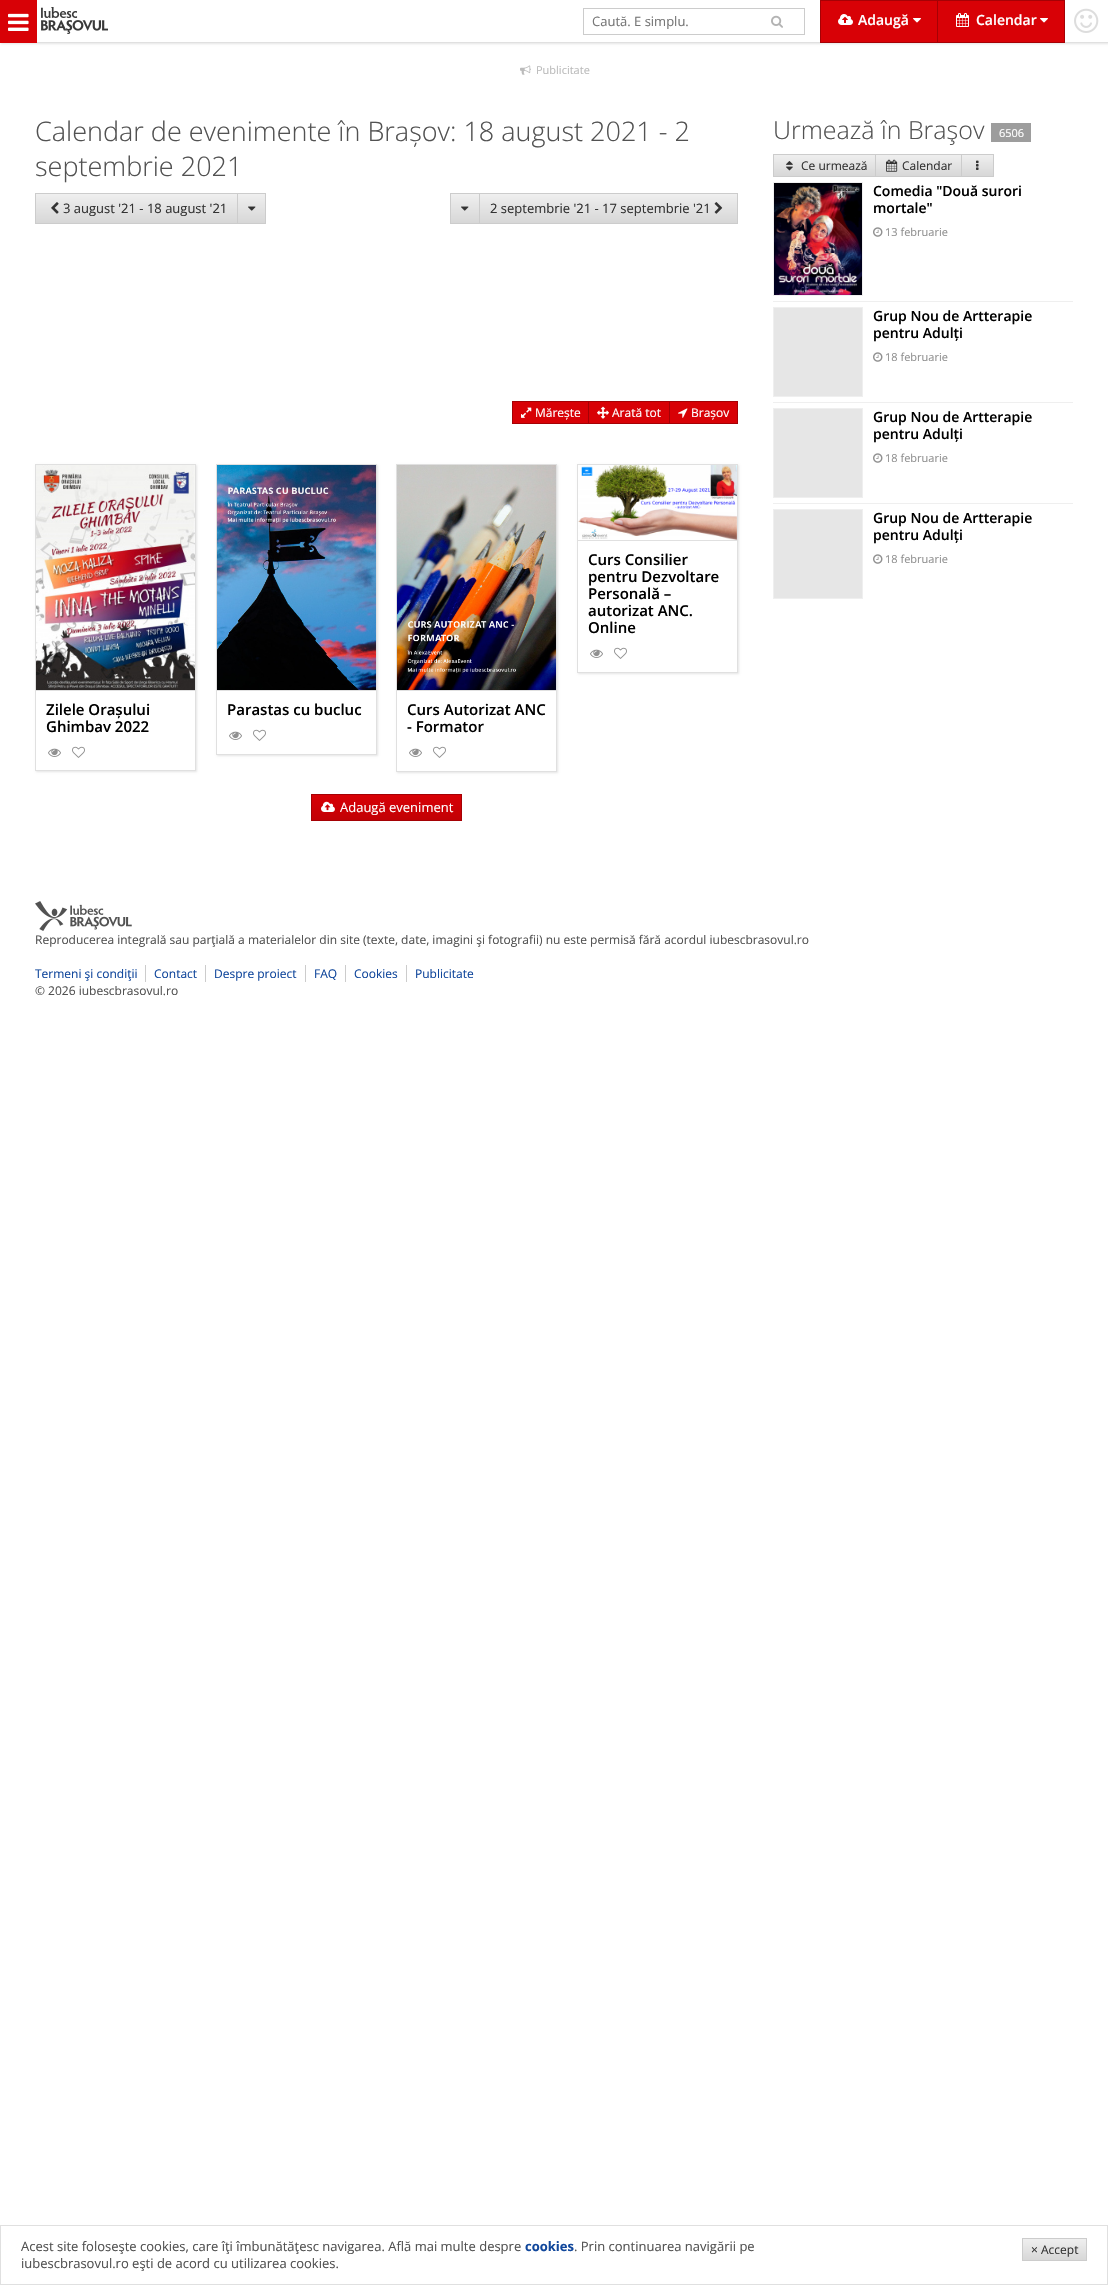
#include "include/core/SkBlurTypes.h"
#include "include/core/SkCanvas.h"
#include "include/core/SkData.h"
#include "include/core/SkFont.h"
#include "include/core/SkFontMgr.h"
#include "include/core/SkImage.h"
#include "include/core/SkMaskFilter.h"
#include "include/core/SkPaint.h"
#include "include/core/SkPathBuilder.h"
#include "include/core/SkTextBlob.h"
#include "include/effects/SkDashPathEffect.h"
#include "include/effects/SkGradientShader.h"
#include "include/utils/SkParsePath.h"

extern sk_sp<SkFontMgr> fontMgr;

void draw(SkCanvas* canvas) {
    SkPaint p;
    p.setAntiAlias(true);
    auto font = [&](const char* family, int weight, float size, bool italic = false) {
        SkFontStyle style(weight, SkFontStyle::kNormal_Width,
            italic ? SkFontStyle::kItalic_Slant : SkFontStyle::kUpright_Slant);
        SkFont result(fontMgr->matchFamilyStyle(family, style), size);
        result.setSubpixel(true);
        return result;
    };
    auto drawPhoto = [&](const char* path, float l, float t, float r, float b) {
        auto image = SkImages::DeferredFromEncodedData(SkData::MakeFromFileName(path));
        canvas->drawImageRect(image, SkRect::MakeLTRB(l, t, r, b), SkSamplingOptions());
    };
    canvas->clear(0xFFFFFFFF);
    p.setColor(0x1A000000);
    p.setMaskFilter(SkMaskFilter::MakeBlur(kNormal_SkBlurStyle, 1));
    canvas->drawRect(SkRect::MakeLTRB(1, 1, 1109, 44), p);
    p.setMaskFilter(nullptr);
    {
        const struct { float l, t, r, b; SkColor color; } items[] = {
            {37, 0, 1108, 42, 0xFFFFFFFF},
            {37, 42, 1108, 43, 0xFFE0E0E0},
            {0, 0, 37, 43, 0xFFD80106},
        };
        for (auto [l, t, r, b, color] : items) {
            p.setColor(color);
            canvas->drawRect(SkRect::MakeLTRB(l, t, r, b), p);
        }
    }
    drawPhoto("media/1.png", 8, 13, 29, 31);
    drawPhoto("media/2.png", 41, 7, 108, 34);
    {
        const struct { float l, t, r, b; SkColor color; } items[] = {
            {583, 8, 805, 9, 0xFFCCCCCC},
            {583, 34, 749, 35, 0xFFCCCCCC},
            {583, 8, 584, 35, 0xFFCCCCCC},
        };
        for (auto [l, t, r, b, color] : items) {
            p.setColor(color);
            canvas->drawRect(SkRect::MakeLTRB(l, t, r, b), p);
        }
    }
    auto font1 = font("Open Sans", 400, 13);
    p.setColor(0xFF757575);
    canvas->drawString("Caută. E simplu.", 592, 26, font1, p);
    p.setColor(0xFFCCCCCC);
    canvas->drawRect(SkRect::MakeLTRB(804, 8, 805, 35), p);
    canvas->drawRect(SkRect::MakeLTRB(749, 34, 805, 35), p);
    drawPhoto("media/3.png", 771, 15, 783, 28);
    p.setColor(0xFFD80106);
    canvas->drawRect(SkRect::MakeLTRB(820.5f, 0.5f, 937.5f, 42.5f), p);
    p.setStyle(SkPaint::kStroke_Style);
    p.setStrokeWidth(1);
    p.setColor(0xFFA50105);
    canvas->drawRect(SkRect::MakeLTRB(820.5f, 0.5f, 937.5f, 42.5f), p);
    drawPhoto("media/4.png", 838, 14, 853, 25);
    auto font2 = font("Open Sans", 600, 14);
    p.setStyle(SkPaint::kFill_Style);
    p.setColor(0xFFFFFFFF);
    canvas->drawString("Adaugă", 858, 25, font2, p);
    drawPhoto("media/5.png", 913, 18, 921, 23);
    {
        const struct { float l, t, r, b; SkColor color; } items[] = {
            {938, 1, 1064, 42, 0xFFD80106},
            {938, 0, 1065, 1, 0xFFA50105},
            {1064, 0, 1065, 43, 0xFFA50105},
            {938, 42, 1065, 43, 0xFFA50105},
        };
        for (auto [l, t, r, b, color] : items) {
            p.setColor(color);
            canvas->drawRect(SkRect::MakeLTRB(l, t, r, b), p);
        }
    }
    drawPhoto("media/6.png", 956, 13, 969, 27);
    p.setColor(0xFFFFFFFF);
    canvas->drawString("Calendar", 976, 25, font2, p);
    drawPhoto("media/5.png", 1040, 18, 1048, 23);
    drawPhoto("media/7.png", 1074, 8, 1099, 33);
    drawPhoto("media/8.png", 520, 65, 531, 75);
    auto font3 = font("Open Sans", 400, 11);
    p.setColor(0xFFBBBBBB);
    canvas->drawString("Publicitate", 536, 74, font3, p);
    auto font4 = font("Open Sans", 300, 27);
    p.setColor(0xFF525252);
    canvas->drawString("Calendar de evenimente în Brașov: 18 august 2021 - 2", 35, 141, font4, p);
    canvas->drawString("septembrie 2021", 35, 176, font4, p);
    {
        const SkColor colors[] = {0xFFEFEFEF, 0xFFD7D7D7};
        const float stops[] = {0, 1};
        const SkPoint ends[] = {{137, 194}, {137, 223}};
        p.setShader(SkGradientShader::MakeLinear(ends, colors, stops, 2, SkTileMode::kClamp));
        p.setAlpha(255);
    }
    canvas->drawRect(SkRect::MakeLTRB(36, 194, 237, 223), p);
    p.setStyle(SkPaint::kStroke_Style);
    p.setShader(nullptr);
    p.setColor(0xFFCCCCCC);
    canvas->drawRect(SkRect::MakeLTRB(35.5f, 193.5f, 237.5f, 223.5f), p);
    drawPhoto("media/9.png", 51, 202, 59, 214);
    p.setStyle(SkPaint::kFill_Style);
    p.setColor(0xFF333333);
    canvas->drawString("3 august '21 - 18 august '21", 63, 213, font1, p);
    {
        const SkColor colors[] = {0xFFEFEFEF, 0xFFD7D7D7};
        const float stops[] = {0, 1};
        const SkPoint ends[] = {{252, 194}, {252, 223}};
        p.setShader(SkGradientShader::MakeLinear(ends, colors, stops, 2, SkTileMode::kClamp));
        p.setAlpha(255);
    }
    canvas->drawRect(SkRect::MakeLTRB(238, 194, 265, 223), p);
    p.setShader(nullptr);
    {
        const struct { float l, t, r, b; SkColor color; } items[] = {
            {238, 193, 266, 194, 0xFFCCCCCC},
            {265, 193, 266, 224, 0xFFCCCCCC},
            {238, 223, 266, 224, 0xFFCCCCCC},
        };
        for (auto [l, t, r, b, color] : items) {
            p.setColor(color);
            canvas->drawRect(SkRect::MakeLTRB(l, t, r, b), p);
        }
    }
    drawPhoto("media/10.png", 248, 206, 256, 211);
    {
        const SkColor colors[] = {0xFFEFEFEF, 0xFFD7D7D7};
        const float stops[] = {0, 1};
        const SkPoint ends[] = {{465, 194}, {465, 223}};
        p.setShader(SkGradientShader::MakeLinear(ends, colors, stops, 2, SkTileMode::kClamp));
        p.setAlpha(255);
    }
    canvas->drawRect(SkRect::MakeLTRB(451, 194, 479, 223), p);
    p.setStyle(SkPaint::kStroke_Style);
    p.setShader(nullptr);
    p.setColor(0xFFCCCCCC);
    canvas->drawRect(SkRect::MakeLTRB(450.5f, 193.5f, 479.5f, 223.5f), p);
    drawPhoto("media/10.png", 461, 206, 469, 211);
    p.setStyle(SkPaint::kFill_Style);
    {
        const SkColor colors[] = {0xFFEFEFEF, 0xFFD7D7D7};
        const float stops[] = {0, 1};
        const SkPoint ends[] = {{609, 194}, {609, 223}};
        p.setShader(SkGradientShader::MakeLinear(ends, colors, stops, 2, SkTileMode::kClamp));
        p.setAlpha(255);
    }
    canvas->drawRect(SkRect::MakeLTRB(480, 194, 737, 223), p);
    p.setShader(nullptr);
    {
        const struct { float l, t, r, b; SkColor color; } items[] = {
            {480, 193, 738, 194, 0xFFCCCCCC},
            {737, 193, 738, 224, 0xFFCCCCCC},
            {480, 223, 738, 224, 0xFFCCCCCC},
        };
        for (auto [l, t, r, b, color] : items) {
            p.setColor(color);
            canvas->drawRect(SkRect::MakeLTRB(l, t, r, b), p);
        }
    }
    p.setColor(0xFF333333);
    canvas->drawString("2 septembrie '21 - 17 septembrie '21", 490, 213, font1, p);
    drawPhoto("media/11.png", 714, 202, 723, 214);
    p.setColor(0xFFD80106);
    canvas->drawRect(SkRect::MakeLTRB(512.5f, 401.5f, 588.5f, 423.5f), p);
    p.setStyle(SkPaint::kStroke_Style);
    p.setColor(0xFFA50105);
    canvas->drawRect(SkRect::MakeLTRB(512.5f, 401.5f, 588.5f, 423.5f), p);
    drawPhoto("media/12.png", 521, 407, 532, 418);
    auto font5 = font("Open Sans", 400, 12);
    p.setStyle(SkPaint::kFill_Style);
    p.setColor(0xFFFFFFFF);
    canvas->drawString("Mărește", 535, 417, font5, p);
    {
        const struct { float l, t, r, b; SkColor color; } items[] = {
            {589, 402, 669, 423, 0xFFD80106},
            {589, 401, 738, 402, 0xFFA50105},
            {669, 401, 670, 424, 0xFFA50105},
            {589, 423, 670, 424, 0xFFA50105},
        };
        for (auto [l, t, r, b, color] : items) {
            p.setColor(color);
            canvas->drawRect(SkRect::MakeLTRB(l, t, r, b), p);
        }
    }
    drawPhoto("media/13.png", 597, 406, 609, 419);
    p.setColor(0xFFFFFFFF);
    canvas->drawString("Arată tot", 612, 417, font5, p);
    {
        const struct { float l, t, r, b; SkColor color; } items[] = {
            {670, 402, 737, 423, 0xFFD80106},
            {737, 401, 738, 424, 0xFFA50105},
            {670, 423, 738, 424, 0xFFA50105},
        };
        for (auto [l, t, r, b, color] : items) {
            p.setColor(color);
            canvas->drawRect(SkRect::MakeLTRB(l, t, r, b), p);
        }
    }
    drawPhoto("media/14.png", 678, 408, 688, 418);
    p.setColor(0xFFFFFFFF);
    canvas->drawString("Brașov", 691, 417, font5, p);
    canvas->save();
    canvas->clipPath(SkPathBuilder(SkPathFillType::kEvenOdd).moveTo(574, 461).lineTo(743, 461).lineTo(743, 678).lineTo(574, 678).close().moveTo(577, 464).lineTo(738, 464).lineTo(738, 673).lineTo(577, 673).close().detach(), true);
    p.setColor(0x1A000000);
    p.setMaskFilter(SkMaskFilter::MakeBlur(kNormal_SkBlurStyle, 1));
    canvas->drawRect(SkRect::MakeLTRB(578, 465, 739, 674), p);
    p.setMaskFilter(nullptr);
    canvas->restore();
    p.setStyle(SkPaint::kStroke_Style);
    p.setColor(0xFFE0E0E0);
    canvas->drawRect(SkRect::MakeLTRB(577.5f, 464.5f, 737.5f, 672.5f), p);
    p.setStyle(SkPaint::kFill_Style);
    canvas->drawRect(SkRect::MakeLTRB(578, 540, 737, 541), p);
    drawPhoto("media/15.png", 578, 465, 737, 540);
    auto font6 = font("Open Sans", 600, 15);
    p.setColor(0xFF000000);
    {
        const struct { const char* s; float x, y; } items[] = {
            {"Curs Consilier", 588, 565},
            {"pentru Dezvoltare", 588, 582},
            {"Personală –", 588, 599},
            {"autorizat ANC.", 588, 616},
            {"Online", 588, 633},
        };
        for (auto [s, x, y] : items) {
            canvas->drawString(s, x, y, font6, p);
        }
    }
    drawPhoto("media/16.png", 590, 649, 603, 658);
    drawPhoto("media/17.png", 614, 647, 627, 659);
    canvas->save();
    canvas->clipPath(SkPathBuilder(SkPathFillType::kEvenOdd).moveTo(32, 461).lineTo(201, 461).lineTo(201, 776).lineTo(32, 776).close().moveTo(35, 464).lineTo(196, 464).lineTo(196, 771).lineTo(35, 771).close().detach(), true);
    p.setColor(0x1A000000);
    p.setMaskFilter(SkMaskFilter::MakeBlur(kNormal_SkBlurStyle, 1));
    canvas->drawRect(SkRect::MakeLTRB(36, 465, 197, 772), p);
    p.setMaskFilter(nullptr);
    canvas->restore();
    p.setStyle(SkPaint::kStroke_Style);
    p.setColor(0xFFE0E0E0);
    canvas->drawRect(SkRect::MakeLTRB(35.5f, 464.5f, 195.5f, 770.5f), p);
    p.setStyle(SkPaint::kFill_Style);
    canvas->drawRect(SkRect::MakeLTRB(36, 690, 195, 691), p);
    drawPhoto("media/18.png", 36, 465, 195, 690);
    p.setColor(0xFF000000);
    canvas->drawString("Zilele Orașului", 46, 715, font6, p);
    canvas->drawString("Ghimbav 2022", 46, 732, font6, p);
    drawPhoto("media/16.png", 48, 748, 61, 757);
    drawPhoto("media/17.png", 72, 746, 85, 758);
    canvas->save();
    canvas->clipPath(SkPathBuilder(SkPathFillType::kEvenOdd).moveTo(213, 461).lineTo(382, 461).lineTo(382, 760).lineTo(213, 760).close().moveTo(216, 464).lineTo(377, 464).lineTo(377, 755).lineTo(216, 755).close().detach(), true);
    p.setColor(0x1A000000);
    p.setMaskFilter(SkMaskFilter::MakeBlur(kNormal_SkBlurStyle, 1));
    canvas->drawRect(SkRect::MakeLTRB(217, 465, 378, 756), p);
    p.setMaskFilter(nullptr);
    canvas->restore();
    p.setStyle(SkPaint::kStroke_Style);
    p.setColor(0xFFE0E0E0);
    canvas->drawRect(SkRect::MakeLTRB(216.5f, 464.5f, 376.5f, 754.5f), p);
    p.setStyle(SkPaint::kFill_Style);
    canvas->drawRect(SkRect::MakeLTRB(217, 690, 376, 691), p);
    drawPhoto("media/19.png", 217, 465, 376, 690);
    p.setColor(0xFF000000);
    canvas->drawString("Parastas cu bucluc", 227, 715, font6, p);
    drawPhoto("media/16.png", 229, 731, 242, 740);
    drawPhoto("media/17.png", 253, 729, 266, 741);
    canvas->save();
    canvas->clipPath(SkPathBuilder(SkPathFillType::kEvenOdd).moveTo(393, 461).lineTo(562, 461).lineTo(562, 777).lineTo(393, 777).close().moveTo(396, 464).lineTo(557, 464).lineTo(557, 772).lineTo(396, 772).close().detach(), true);
    p.setColor(0x1A000000);
    p.setMaskFilter(SkMaskFilter::MakeBlur(kNormal_SkBlurStyle, 1));
    canvas->drawRect(SkRect::MakeLTRB(397, 465, 558, 773), p);
    p.setMaskFilter(nullptr);
    canvas->restore();
    p.setStyle(SkPaint::kStroke_Style);
    p.setColor(0xFFE0E0E0);
    canvas->drawRect(SkRect::MakeLTRB(396.5f, 464.5f, 556.5f, 771.5f), p);
    p.setStyle(SkPaint::kFill_Style);
    canvas->drawRect(SkRect::MakeLTRB(397, 690, 556, 691), p);
    drawPhoto("media/20.png", 397, 465, 556, 690);
    p.setColor(0xFF000000);
    canvas->drawString("Curs Autorizat ANC", 407, 715, font6, p);
    canvas->drawString("- Formator", 407, 732, font6, p);
    drawPhoto("media/16.png", 409, 748, 422, 757);
    drawPhoto("media/17.png", 433, 746, 446, 758);
    {
        const SkColor colors[] = {0xFFD80106, 0xFFC20105};
        const float stops[] = {0, 1};
        const SkPoint ends[] = {{387, 795}, {387, 820}};
        p.setShader(SkGradientShader::MakeLinear(ends, colors, stops, 2, SkTileMode::kClamp));
        p.setAlpha(255);
    }
    canvas->drawRect(SkRect::MakeLTRB(312, 795, 461, 820), p);
    p.setStyle(SkPaint::kStroke_Style);
    p.setShader(nullptr);
    p.setColor(0xFFA50105);
    canvas->drawRect(SkRect::MakeLTRB(311.5f, 794.5f, 461.5f, 820.5f), p);
    drawPhoto("media/21.png", 321, 801, 335, 812);
    p.setStyle(SkPaint::kFill_Style);
    p.setColor(0xFFFFFFFF);
    canvas->drawString("Adaugă eveniment", 340, 812, font1, p);
    auto font7 = font("Open Sans", 300, 25);
    p.setColor(0xFF525252);
    canvas->drawString("Urmează în Braşov", 773, 139, font7, p);
    p.setColor(0xFF9D9D9D);
    canvas->drawRect(SkRect::MakeLTRB(991, 123, 1031, 142), p);
    p.setColor(0xFFFFFFFF);
    canvas->drawString("6506", 999, 137, font3, p);
    {
        const SkColor colors[] = {0xFFEFEFEF, 0xFFD7D7D7};
        const float stops[] = {0, 1};
        const SkPoint ends[] = {{825, 155}, {825, 176}};
        p.setShader(SkGradientShader::MakeLinear(ends, colors, stops, 2, SkTileMode::kClamp));
        p.setAlpha(255);
    }
    canvas->drawRect(SkRect::MakeLTRB(774, 155, 875, 176), p);
    p.setStyle(SkPaint::kStroke_Style);
    p.setShader(nullptr);
    p.setColor(0xFFCCCCCC);
    canvas->drawRect(SkRect::MakeLTRB(773.5f, 154.5f, 875.5f, 176.5f), p);
    drawPhoto("media/22.png", 786, 161, 793, 171);
    p.setStyle(SkPaint::kFill_Style);
    p.setColor(0xFF333333);
    canvas->drawString("Ce urmează", 801, 170, font5, p);
    {
        const SkColor colors[] = {0xFFEFEFEF, 0xFFD7D7D7};
        const float stops[] = {0, 1};
        const SkPoint ends[] = {{919, 155}, {919, 176}};
        p.setShader(SkGradientShader::MakeLinear(ends, colors, stops, 2, SkTileMode::kClamp));
        p.setAlpha(255);
    }
    canvas->drawRect(SkRect::MakeLTRB(876, 155, 961, 176), p);
    p.setShader(nullptr);
    {
        const struct { float l, t, r, b; SkColor color; } items[] = {
            {876, 154, 994, 155, 0xFFCCCCCC},
            {961, 154, 962, 177, 0xFFCCCCCC},
            {876, 176, 962, 177, 0xFFCCCCCC},
        };
        for (auto [l, t, r, b, color] : items) {
            p.setColor(color);
            canvas->drawRect(SkRect::MakeLTRB(l, t, r, b), p);
        }
    }
    drawPhoto("media/23.png", 886, 159, 898, 172);
    p.setColor(0xFF333333);
    canvas->drawString("Calendar", 902, 170, font5, p);
    {
        const SkColor colors[] = {0xFFEFEFEF, 0xFFD7D7D7};
        const float stops[] = {0, 1};
        const SkPoint ends[] = {{978, 155}, {978, 176}};
        p.setShader(SkGradientShader::MakeLinear(ends, colors, stops, 2, SkTileMode::kClamp));
        p.setAlpha(255);
    }
    canvas->drawRect(SkRect::MakeLTRB(962, 155, 993, 176), p);
    p.setShader(nullptr);
    p.setColor(0xFFCCCCCC);
    canvas->drawRect(SkRect::MakeLTRB(993, 154, 994, 177), p);
    canvas->drawRect(SkRect::MakeLTRB(962, 176, 994, 177), p);
    drawPhoto("media/24.png", 976, 160, 979, 170);
    p.setStyle(SkPaint::kStroke_Style);
    p.setColor(0xFFEFEFEF);
    canvas->drawRect(SkRect::MakeLTRB(773.5f, 182.5f, 862.5f, 295.5f), p);
    drawPhoto("media/25.png", 774, 183, 862, 295);
    p.setStyle(SkPaint::kFill_Style);
    p.setColor(0xFF000000);
    canvas->drawString("Comedia \"Două surori", 873, 196, font2, p);
    canvas->drawString("mortale\"", 873, 213, font2, p);
    drawPhoto("media/26.png", 873, 227, 883, 237);
    p.setColor(0xFF909090);
    canvas->drawString("13 februarie", 885, 236, font3, p);
    p.setColor(0xFFEFEFEF);
    canvas->drawRect(SkRect::MakeLTRB(773, 301, 1073, 302), p);
    p.setStyle(SkPaint::kStroke_Style);
    canvas->drawRect(SkRect::MakeLTRB(773.5f, 307.5f, 862.5f, 396.5f), p);
    p.setStyle(SkPaint::kFill_Style);
    p.setColor(0xFFE6E6E6);
    canvas->drawRect(SkRect::MakeLTRB(774, 308, 862, 396), p);
    p.setColor(0xFF000000);
    canvas->drawString("Grup Nou de Artterapie", 873, 321, font2, p);
    canvas->drawString("pentru Adulți", 873, 338, font2, p);
    drawPhoto("media/26.png", 873, 352, 883, 362);
    p.setColor(0xFF909090);
    canvas->drawString("18 februarie", 885, 361, font3, p);
    p.setColor(0xFFEFEFEF);
    canvas->drawRect(SkRect::MakeLTRB(773, 402, 1073, 403), p);
    p.setStyle(SkPaint::kStroke_Style);
    canvas->drawRect(SkRect::MakeLTRB(773.5f, 408.5f, 862.5f, 497.5f), p);
    p.setStyle(SkPaint::kFill_Style);
    p.setColor(0xFFE6E6E6);
    canvas->drawRect(SkRect::MakeLTRB(774, 409, 862, 497), p);
    p.setColor(0xFF000000);
    canvas->drawString("Grup Nou de Artterapie", 873, 422, font2, p);
    canvas->drawString("pentru Adulți", 873, 439, font2, p);
    drawPhoto("media/26.png", 873, 453, 883, 463);
    p.setColor(0xFF909090);
    canvas->drawString("18 februarie", 885, 462, font3, p);
    p.setColor(0xFFEFEFEF);
    canvas->drawRect(SkRect::MakeLTRB(773, 503, 1073, 504), p);
    p.setStyle(SkPaint::kStroke_Style);
    canvas->drawRect(SkRect::MakeLTRB(773.5f, 509.5f, 862.5f, 598.5f), p);
    p.setStyle(SkPaint::kFill_Style);
    p.setColor(0xFFE6E6E6);
    canvas->drawRect(SkRect::MakeLTRB(774, 510, 862, 598), p);
    p.setColor(0xFF000000);
    canvas->drawString("Grup Nou de Artterapie", 873, 523, font2, p);
    canvas->drawString("pentru Adulți", 873, 540, font2, p);
    drawPhoto("media/26.png", 873, 554, 883, 564);
    p.setColor(0xFF909090);
    canvas->drawString("18 februarie", 885, 563, font3, p);
    drawPhoto("media/27.png", 35, 901, 132, 931);
    p.setColor(0xFF525252);
    canvas->drawString("Reproducerea integrală sau parţială a materialelor din site (texte, date, imagini şi fotografii) nu este permisă fără acordul iubescbrasovul.ro", 35, 944, font5, p);
    p.setColor(0xFF11479C);
    canvas->drawString("Termeni şi condiţii", 35, 978, font5, p);
    p.setColor(0xFFCCCCCC);
    canvas->drawRect(SkRect::MakeLTRB(145, 965, 146, 982), p);
    p.setColor(0xFF11479C);
    canvas->drawString("Contact", 154, 978, font5, p);
    p.setColor(0xFFCCCCCC);
    canvas->drawRect(SkRect::MakeLTRB(205, 965, 206, 982), p);
    p.setColor(0xFF11479C);
    canvas->drawString("Despre proiect", 214, 978, font5, p);
    p.setColor(0xFFCCCCCC);
    canvas->drawRect(SkRect::MakeLTRB(305, 965, 306, 982), p);
    p.setColor(0xFF11479C);
    canvas->drawString("FAQ", 314, 978, font5, p);
    p.setColor(0xFFCCCCCC);
    canvas->drawRect(SkRect::MakeLTRB(345, 965, 346, 982), p);
    p.setColor(0xFF11479C);
    canvas->drawString("Cookies", 354, 978, font5, p);
    p.setColor(0xFFCCCCCC);
    canvas->drawRect(SkRect::MakeLTRB(406, 965, 407, 982), p);
    p.setColor(0xFF11479C);
    canvas->drawString("Publicitate", 415, 978, font5, p);
    p.setColor(0xFF525252);
    canvas->drawString("© 2026 iubescbrasovul.ro", 35, 995, font5, p);
    p.setStyle(SkPaint::kStroke_Style);
    p.setColor(0xFFE0E0E0);
    canvas->drawRect(SkRect::MakeLTRB(0.5f, 2225.5f, 1107.5f, 2284.5f), p);
    p.setStyle(SkPaint::kFill_Style);
    p.setColor(0xFF525252);
    canvas->drawString("Acest site foloseşte cookies, care îţi îmbunătăţesc navigarea. Află mai multe despre", 21, 2251, font1, p);
    auto font8 = font("Open Sans", 700, 13);
    p.setColor(0xFF11479C);
    canvas->drawString("cookies", 525, 2251, font8, p);
    p.setColor(0xFF525252);
    canvas->drawString(". Prin continuarea navigării pe", 574, 2251, font1, p);
    canvas->drawString("iubescbrasovul.ro eşti de acord cu utilizarea cookies.", 21, 2268, font1, p);
    {
        const SkColor colors[] = {0xFFEFEFEF, 0xFFD7D7D7};
        const float stops[] = {0, 1};
        const SkPoint ends[] = {{1055, 2239}, {1055, 2260}};
        p.setShader(SkGradientShader::MakeLinear(ends, colors, stops, 2, SkTileMode::kClamp));
        p.setAlpha(255);
    }
    canvas->drawRect(SkRect::MakeLTRB(1023, 2239, 1086, 2260), p);
    p.setStyle(SkPaint::kStroke_Style);
    p.setShader(nullptr);
    p.setColor(0xFFCCCCCC);
    canvas->drawRect(SkRect::MakeLTRB(1022.5f, 2238.5f, 1086.5f, 2260.5f), p);
    p.setStyle(SkPaint::kFill_Style);
    p.setColor(0xFF333333);
    canvas->drawString("× Accept", 1031, 2254, font5, p);
}
